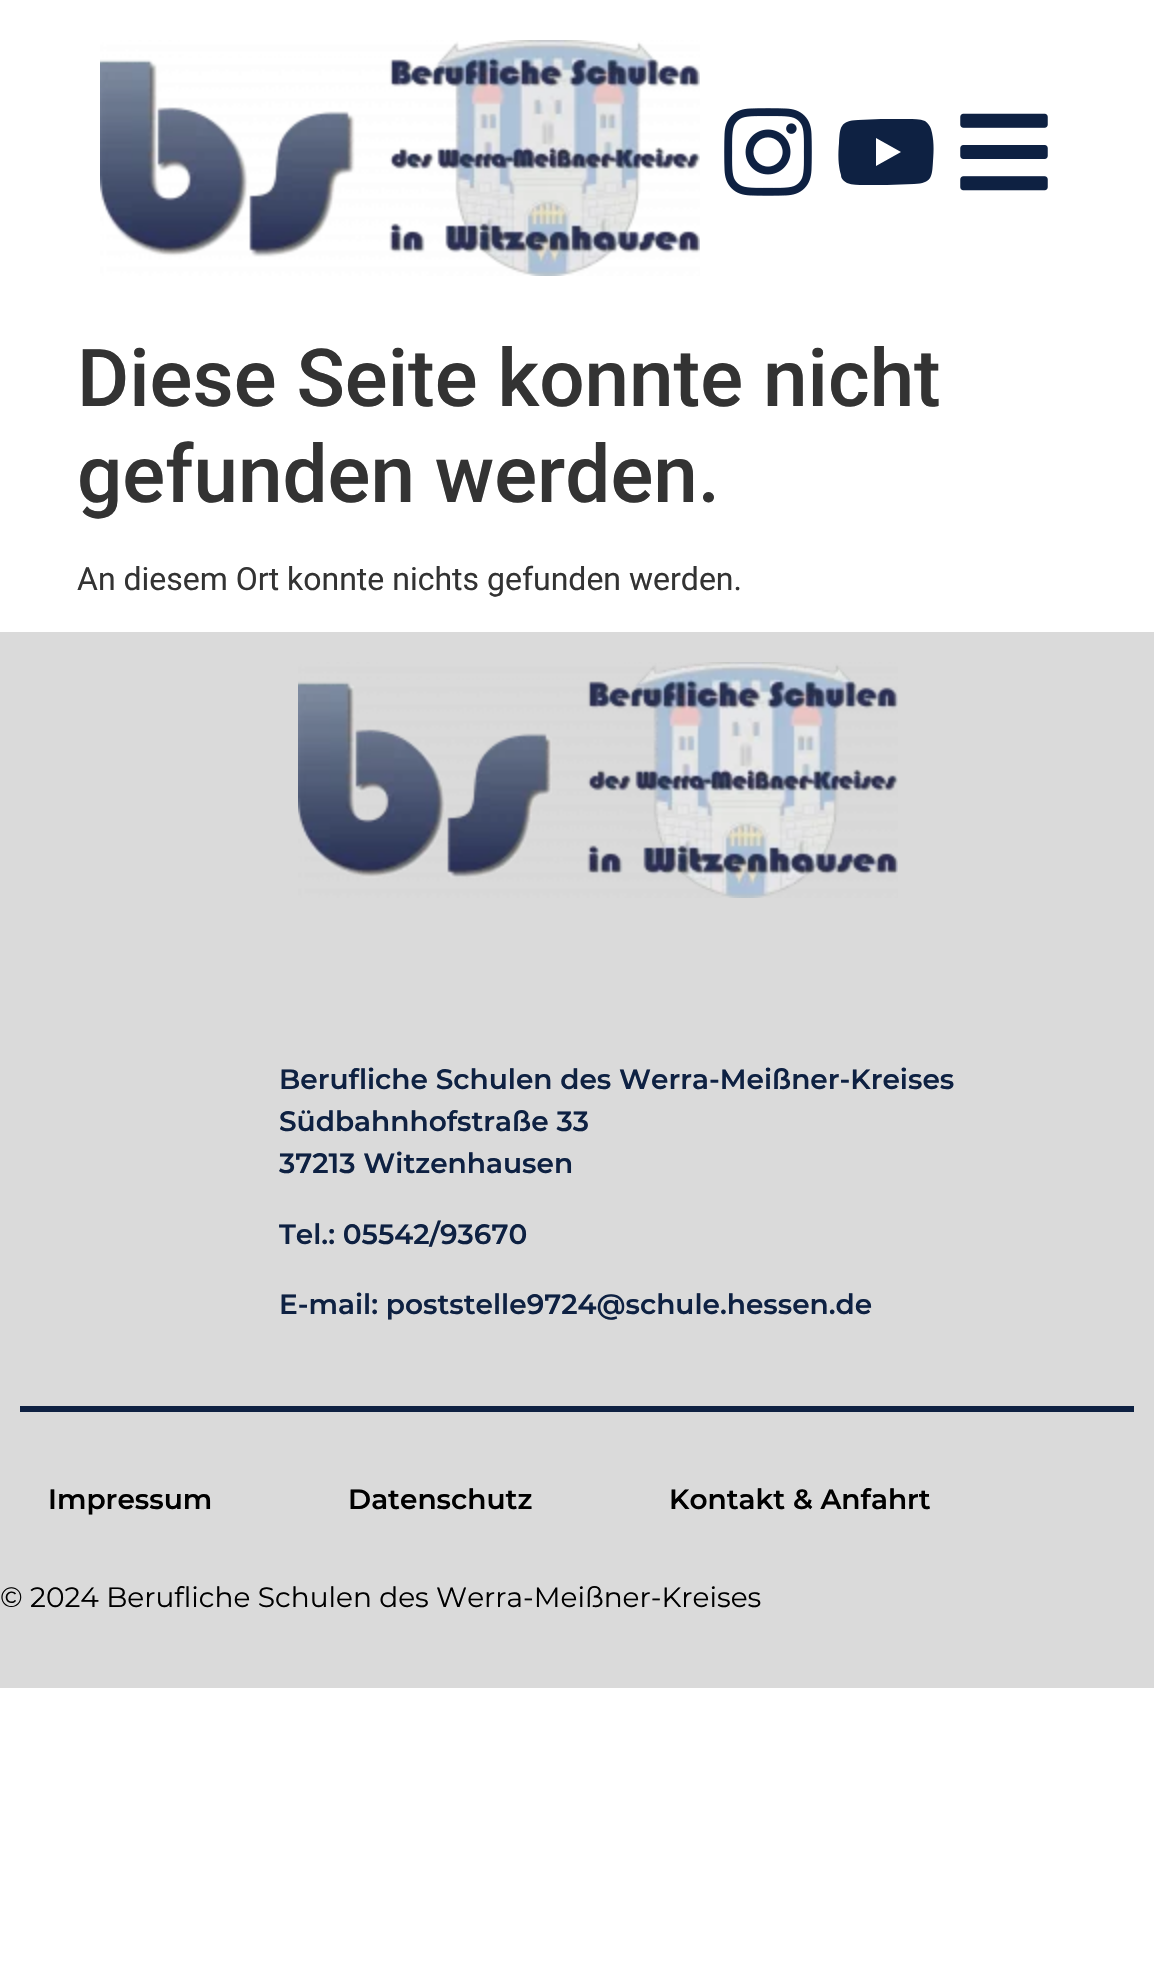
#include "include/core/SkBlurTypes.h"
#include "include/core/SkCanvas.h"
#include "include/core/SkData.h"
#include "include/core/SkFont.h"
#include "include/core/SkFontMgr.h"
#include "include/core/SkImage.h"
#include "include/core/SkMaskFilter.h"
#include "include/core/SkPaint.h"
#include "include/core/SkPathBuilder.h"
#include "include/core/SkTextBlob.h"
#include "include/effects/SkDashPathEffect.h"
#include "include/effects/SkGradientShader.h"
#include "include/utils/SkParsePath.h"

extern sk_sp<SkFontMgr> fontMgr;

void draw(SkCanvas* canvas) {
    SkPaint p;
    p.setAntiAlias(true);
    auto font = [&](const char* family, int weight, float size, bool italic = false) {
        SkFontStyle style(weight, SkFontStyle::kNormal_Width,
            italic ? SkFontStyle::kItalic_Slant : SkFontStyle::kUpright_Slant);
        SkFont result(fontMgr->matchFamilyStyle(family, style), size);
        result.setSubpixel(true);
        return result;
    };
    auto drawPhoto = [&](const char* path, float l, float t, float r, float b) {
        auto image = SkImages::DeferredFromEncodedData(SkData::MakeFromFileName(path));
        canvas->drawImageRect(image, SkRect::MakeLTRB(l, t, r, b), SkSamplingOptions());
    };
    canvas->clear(0xFFFFFFFF);
    drawPhoto("media/1.png", 100, 40, 700, 276);
    drawPhoto("media/2.png", 724, 108, 812, 196);
    p.setColor(0xFF0E2142);
    canvas->drawPath(SkPathBuilder().moveTo(931, 129).cubicTo(930, 126, 928, 123, 925, 121).cubicTo(920, 119, 913, 119, 908, 119).lineTo(881, 119).lineTo(858, 120).cubicTo(840, 121, 840, 127, 839, 143).cubicTo(838, 154, 838, 165, 841, 175).cubicTo(841, 179, 844, 181, 847, 183).cubicTo(852, 185, 859, 185, 864, 185).lineTo(887, 185).lineTo(914, 184).cubicTo(932, 183, 932, 177, 933, 161).cubicTo(934, 150, 934, 139, 931, 129).close().moveTo(876, 166).lineTo(876, 138).lineTo(901, 152).close().detach(), p);
    drawPhoto("media/3.png", 960, 113, 1048, 191);
    auto font1 = font("Roboto", 500, 80);
    p.setColor(0xFF333333);
    canvas->drawString("Diese Seite konnte nicht", 77, 406, font1, p);
    canvas->drawString("gefunden werden.", 77, 502, font1, p);
    auto font2 = font("Roboto", 400, 32);
    canvas->drawString("An diesem Ort konnte nichts gefunden werden.", 77, 590, font2, p);
    p.setColor(0xFFDADADA);
    canvas->drawRect(SkRect::MakeLTRB(0, 632, 1154, 1688), p);
    drawPhoto("media/4.png", 298, 662, 898, 898);
    auto font3 = font("Montserrat", 600, 28);
    p.setColor(0xFF0E2142);
    {
        const struct { const char* s; float x, y; } items[] = {
            {"Berufliche Schulen des Werra-Meißner-Kreises", 279, 1089},
            {"Südbahnhofstraße 33", 279, 1131},
            {"37213 Witzenhausen", 279, 1173},
            {"Tel.: 05542/93670", 279, 1244},
            {"E-mail: poststelle9724@schule.hessen.de", 279, 1314},
        };
        for (auto [s, x, y] : items) {
            canvas->drawString(s, x, y, font3, p);
        }
    }
    canvas->drawRect(SkRect::MakeLTRB(20, 1406, 1134, 1412), p);
    p.setColor(0xFF000000);
    {
        const struct { const char* s; float x, y; } items[] = {
            {"Impressum", 48, 1509},
            {"Datenschutz", 348, 1509},
            {"Kontakt & Anfahrt", 669, 1509},
        };
        for (auto [s, x, y] : items) {
            canvas->drawString(s, x, y, font3, p);
        }
    }
    auto font4 = font("Montserrat", 400, 28);
    canvas->drawString("© 2024 Berufliche Schulen des Werra-Meißner-Kreises", 0, 1607, font4, p);
}
